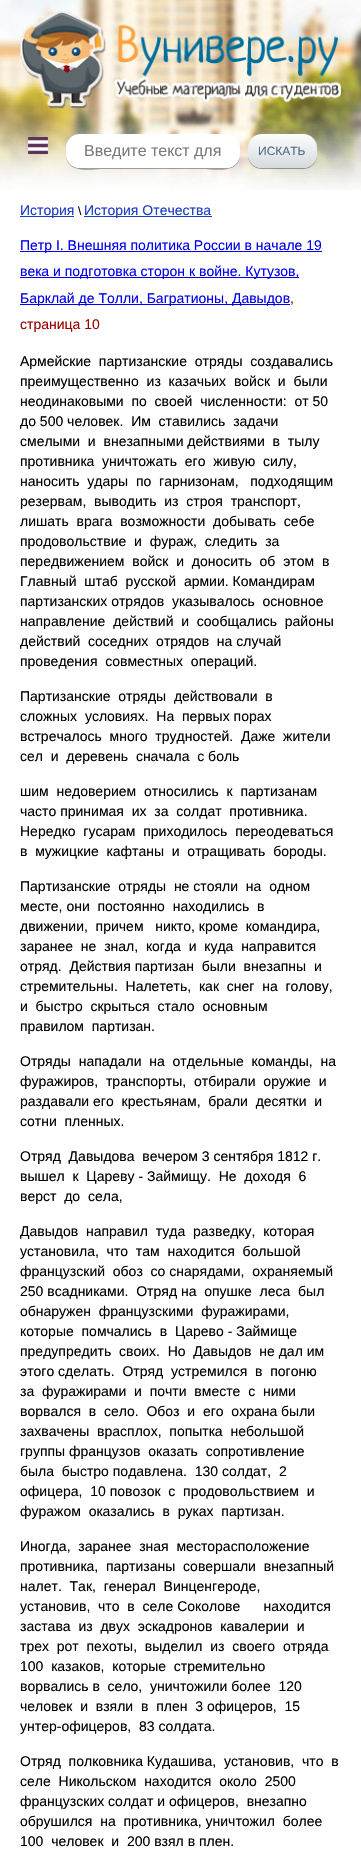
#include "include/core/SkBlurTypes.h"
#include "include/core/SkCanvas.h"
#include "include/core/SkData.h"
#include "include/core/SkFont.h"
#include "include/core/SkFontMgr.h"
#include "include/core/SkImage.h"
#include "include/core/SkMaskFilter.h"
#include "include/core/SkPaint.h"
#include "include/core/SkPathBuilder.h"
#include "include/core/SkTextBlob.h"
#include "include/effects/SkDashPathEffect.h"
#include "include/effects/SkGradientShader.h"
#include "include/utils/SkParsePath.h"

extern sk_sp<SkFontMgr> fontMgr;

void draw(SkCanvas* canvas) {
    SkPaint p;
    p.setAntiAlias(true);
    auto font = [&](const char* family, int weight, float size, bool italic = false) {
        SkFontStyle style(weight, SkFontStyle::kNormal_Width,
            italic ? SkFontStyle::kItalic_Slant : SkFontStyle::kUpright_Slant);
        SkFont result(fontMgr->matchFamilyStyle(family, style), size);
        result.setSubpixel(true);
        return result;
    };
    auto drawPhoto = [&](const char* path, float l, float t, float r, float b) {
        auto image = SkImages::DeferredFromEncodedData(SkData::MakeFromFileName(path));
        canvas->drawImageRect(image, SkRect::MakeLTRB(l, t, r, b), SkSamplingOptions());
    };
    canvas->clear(0xFFFFFFFF);
    drawPhoto("media/1.png", 0, 0, 361, 190);
    drawPhoto("media/2.png", 20, 10, 341, 109);
    drawPhoto("media/3.png", 28, 137, 48, 154);
    p.setColor(0x59000000);
    canvas->drawPath(SkPathBuilder().moveTo(66, 154).cubicTo(66, 175, 92, 169, 104, 169).lineTo(202, 169).cubicTo(214, 169, 240, 175, 240, 154).cubicTo(240, 162, 234, 168, 226, 168).lineTo(80, 168).cubicTo(72, 168, 66, 162, 66, 154).close().detach(), p);
    p.setColor(0xFFFFFFFF);
    canvas->drawRoundRect(SkRect::MakeLTRB(66, 134, 240, 168), 14, 14, p);
    auto font1 = font("Liberation Sans", 400, 16);
    p.setColor(0xFF7B7B7B);
    canvas->drawString("Введите текст для", 84, 156, font1, p);
    p.setColor(0x59000000);
    canvas->drawPath(SkPathBuilder().moveTo(248, 154).lineTo(248, 155).cubicTo(248, 163, 254, 169, 262, 169).lineTo(303, 169).cubicTo(311, 169, 317, 163, 317, 155).lineTo(317, 154).cubicTo(317, 162, 311, 168, 303, 168).lineTo(262, 168).cubicTo(254, 168, 248, 162, 248, 154).close().detach(), p);
    {
        const SkColor colors[] = {0xFFFCFCFC, 0xFFD6DBDE};
        const float stops[] = {0, 1};
        const SkPoint ends[] = {{283, 134}, {283, 168}};
        p.setShader(SkGradientShader::MakeLinear(ends, colors, stops, 2, SkTileMode::kClamp));
        p.setAlpha(255);
    }
    canvas->drawRoundRect(SkRect::MakeLTRB(248, 134, 317, 168), 14, 14, p);
    auto font2 = font("Liberation Sans", 400, 12);
    p.setShader(nullptr);
    p.setColor(0xFF4E7080);
    canvas->drawString("ИСКАТЬ", 258, 155, font2, p);
    p.setColor(0xFF1A3DC1);
    canvas->drawRect(SkRect::MakeLTRB(20, 216, 74, 217), p);
    auto font3 = font("Liberation Sans", 400, 14);
    canvas->drawString("История", 20, 215, font3, p);
    p.setColor(0xFF000000);
    canvas->drawString("\\", 78, 215, font2, p);
    p.setColor(0xFF1A3DC1);
    canvas->drawRect(SkRect::MakeLTRB(84, 216, 212, 217), p);
    canvas->drawString("История Отечества", 84, 215, font3, p);
    p.setColor(0xFF0000EE);
    canvas->drawRect(SkRect::MakeLTRB(20, 251, 322, 252), p);
    canvas->drawString("Петр I. Внешняя политика России в начале 19", 20, 250, font3, p);
    canvas->drawRect(SkRect::MakeLTRB(20, 277, 299, 278), p);
    canvas->drawString("века и подготовка сторон к войне. Кутузов,", 20, 276, font3, p);
    canvas->drawRect(SkRect::MakeLTRB(20, 304, 290, 305), p);
    canvas->drawString("Барклай де Толли, Багратионы, Давыдов", 20, 303, font3, p);
    p.setColor(0xFF990000);
    canvas->drawString(",", 290, 303, font3, p);
    canvas->drawString("страница 10", 20, 329, font3, p);
    p.setColor(0xFF000000);
    {
        const struct { const char* s; float x, y; } items[] = {
            {"Армейские  партизанские  отряды  создавались", 20, 366},
            {"преимущественно  из  казачьих  войск  и  были", 20, 386},
            {"неодинаковыми  по  своей  численности:  от 50", 20, 406},
            {"до 500 человек.  Им  ставились  задачи", 20, 426},
            {"смелыми  и  внезапными действиями  в  тылу", 20, 446},
            {"противника  уничтожать  его  живую  силу,", 20, 466},
            {"наносить  удары  по  гарнизонам,   подходящим", 20, 486},
            {"резервам,  выводить  из  строя  транспорт,", 20, 506},
            {"лишать  врага  возможности  добывать  себе", 20, 526},
            {"продовольствие  и  фураж,  следить  за", 20, 546},
            {"передвижением  войск  и  доносить  об  этом  в", 20, 566},
            {"Главный  штаб  русской  армии. Командирам", 20, 586},
            {"партизанских отрядов  указывалось  основное", 20, 606},
            {"направление  действий  и  сообщались  районы", 20, 626},
            {"действий  соседних  отрядов  на случай", 20, 646},
            {"проведения  совместных  операций.", 20, 666},
            {"Партизанские  отряды  действовали  в", 20, 701},
            {"сложных  условиях.  На  первых порах", 20, 721},
            {"встречалось  много  трудностей.  Даже  жители", 20, 741},
            {"сел  и  деревень  сначала  с боль", 20, 761},
            {"шим  недоверием  относились  к  партизанам", 20, 796},
            {"часто принимая  их  за  солдат  противника.", 20, 816},
            {"Нередко  гусарам  приходилось  переодеваться", 20, 836},
            {"в  мужицкие  кафтаны  и  отращивать  бороды.", 20, 856},
            {"Партизанские  отряды  не стояли  на  одном", 20, 891},
            {"месте, они  постоянно  находились  в", 20, 911},
            {"движении,  причем   никто, кроме  командира,", 20, 931},
            {"заранее  не  знал,  когда  и  куда  направится", 20, 951},
            {"отряд.  Действия партизан  были  внезапны  и", 20, 971},
            {"стремительны.  Налететь,  как  снег  на  голову,", 20, 991},
            {"и  быстро  скрыться  стало  основным", 20, 1011},
            {"правилом  партизан.", 20, 1031},
            {"Отряды  нападали  на  отдельные  команды,  на", 20, 1066},
            {"фуражиров,  транспорты,  отбирали  оружие  и", 20, 1086},
            {"раздавали его  крестьянам,  брали  десятки  и", 20, 1106},
            {"сотни  пленных.", 20, 1126},
            {"Отряд  Давыдова  вечером 3 сентября 1812 г.", 20, 1161},
            {"вышел  к  Цареву - Займищу.  Не  доходя  6", 20, 1181},
            {"верст  до  села,", 20, 1201},
            {"Давыдов  направил  туда  разведку,  которая", 20, 1236},
            {"установила,  что  там  находится  большой", 20, 1256},
            {"французский  обоз  со снарядами,  охраняемый", 20, 1276},
            {"250 всадниками.  Отряд на  опушке  леса  был", 20, 1296},
            {"обнаружен  французскими  фуражирами,", 20, 1316},
            {"которые  помчались  в  Царево - Займище", 20, 1336},
            {"предупредить  своих.  Но  Давыдов  не дал им", 20, 1356},
            {"этого сделать.  Отряд  устремился  в  погоню", 20, 1376},
            {"за  фуражирами  и  почти  вместе  с  ними", 20, 1396},
            {"ворвался  в  село.  Обоз  и  его  охрана были", 20, 1416},
            {"захвачены  врасплох,  попытка  небольшой", 20, 1436},
            {"группы французов  оказать  сопротивление", 20, 1456},
            {"была  быстро подавлена.  130 солдат,  2", 20, 1476},
            {"офицера,  10 повозок  с  продовольствием  и", 20, 1496},
            {"фуражом  оказались  в  руках  партизан.", 20, 1516},
            {"Иногда,  заранее  зная  месторасположение", 20, 1551},
            {"противника,  партизаны  совершали  внезапный", 20, 1571},
            {"налет.  Так,  генерал  Винценгероде,", 20, 1591},
            {"установив,  что  в  селе Соколове      находится", 20, 1611},
            {"застава  из  двух  эскадронов  кавалерии  и", 20, 1631},
            {"трех  рот  пехоты,  выделил  из  своего  отряда", 20, 1651},
            {"100  казаков,  которые  стремительно", 20, 1671},
            {"ворвались в  село,  уничтожили более  120", 20, 1691},
            {"человек  и  взяли  в  плен  3 офицеров,  15", 20, 1711},
            {"унтер-офицеров,  83 солдата.", 20, 1731},
            {"Отряд  полковника Кудашива,  установив,  что  в", 20, 1766},
            {"селе  Никольском  находится  около  2500", 20, 1786},
            {"французских солдат и офицеров,  внезапно", 20, 1806},
            {"обрушился  на  противника, уничтожил  более", 20, 1826},
            {"100  человек  и  200 взял в плен.", 20, 1846},
        };
        for (auto [s, x, y] : items) {
            canvas->drawString(s, x, y, font3, p);
        }
    }
}
